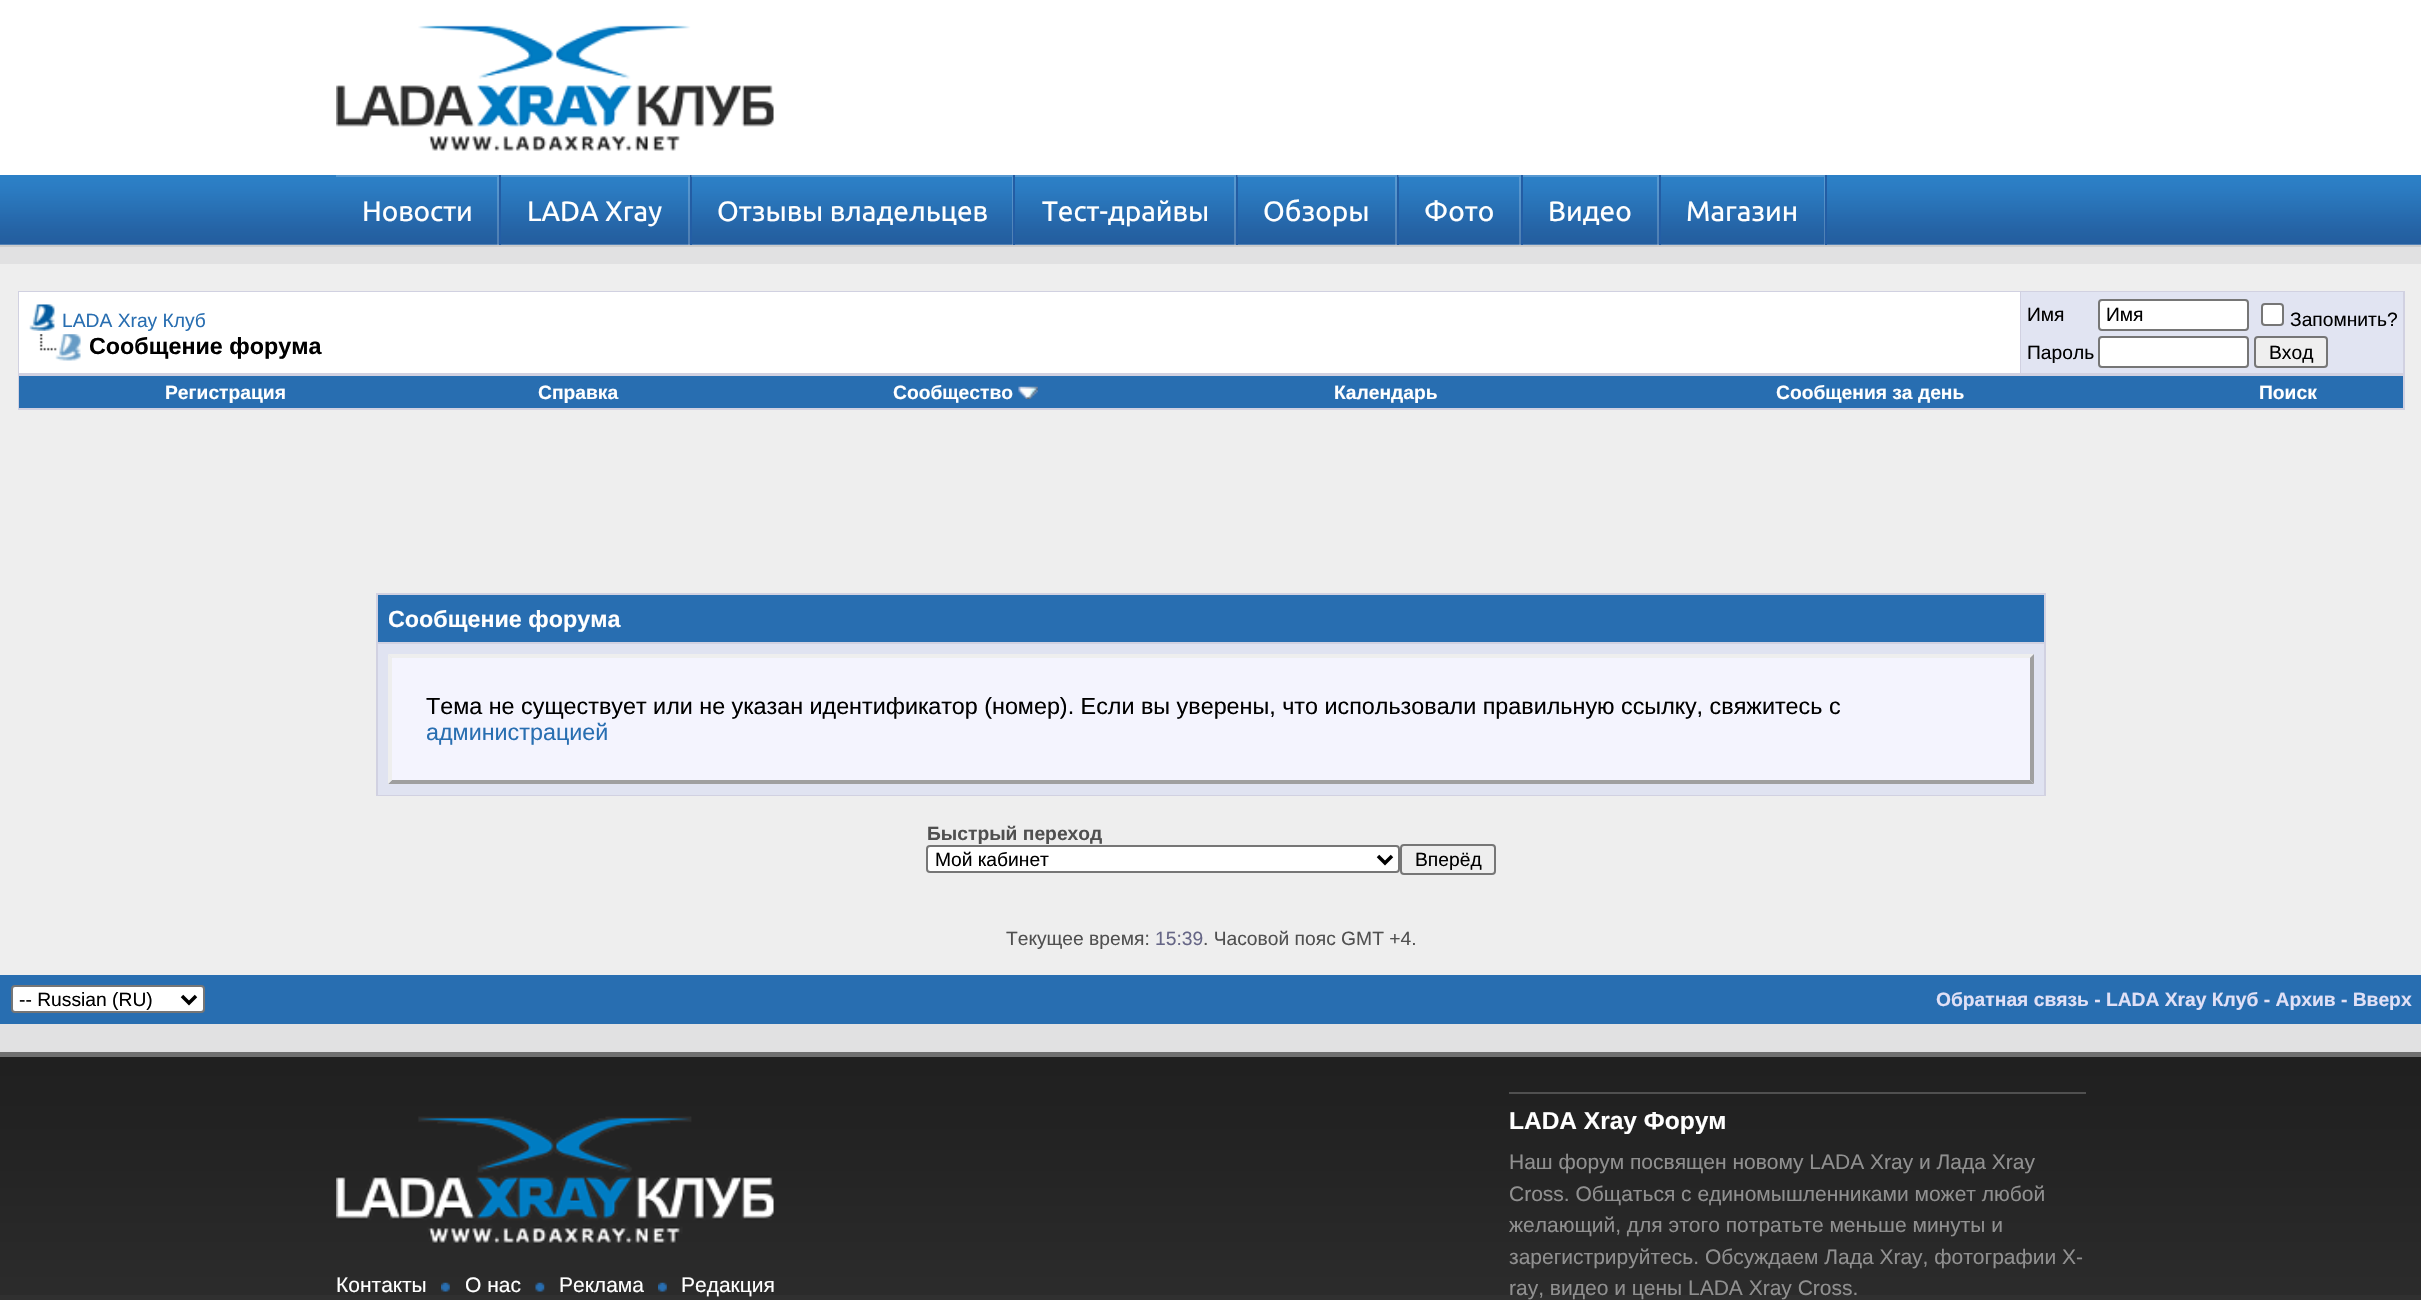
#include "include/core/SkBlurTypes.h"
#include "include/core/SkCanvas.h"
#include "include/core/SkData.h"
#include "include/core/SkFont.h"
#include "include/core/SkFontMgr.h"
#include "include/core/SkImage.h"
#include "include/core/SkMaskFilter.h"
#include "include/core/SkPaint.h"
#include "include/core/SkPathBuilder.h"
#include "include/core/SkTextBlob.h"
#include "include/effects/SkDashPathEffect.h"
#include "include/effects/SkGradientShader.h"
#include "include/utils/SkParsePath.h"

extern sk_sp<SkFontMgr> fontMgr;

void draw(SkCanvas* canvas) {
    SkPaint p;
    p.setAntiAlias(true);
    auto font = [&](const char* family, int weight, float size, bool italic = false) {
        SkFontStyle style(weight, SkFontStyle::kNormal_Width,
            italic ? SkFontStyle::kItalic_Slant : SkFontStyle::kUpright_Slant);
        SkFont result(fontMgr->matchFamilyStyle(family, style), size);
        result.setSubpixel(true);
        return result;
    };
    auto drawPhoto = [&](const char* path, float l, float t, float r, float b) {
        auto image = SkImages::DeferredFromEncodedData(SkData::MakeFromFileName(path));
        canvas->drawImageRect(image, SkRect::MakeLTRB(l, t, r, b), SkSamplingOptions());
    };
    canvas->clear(0xFFE1E1E2);
    p.setColor(0xFFFFFFFF);
    canvas->drawRect(SkRect::MakeLTRB(0, 0, 2421, 175), p);
    drawPhoto("media/1.png", 336, 25, 774, 151);
    drawPhoto("media/2.png", 0, 175, 2421, 245);
    p.setColor(0xFFCCCCCC);
    canvas->drawRect(SkRect::MakeLTRB(0, 245, 2421, 247), p);
    canvas->save();
    canvas->clipRect(SkRect::MakeLTRB(336, 175, 499, 245));
    p.setColor(0x33FFFFFF);
    canvas->drawPath(SkPathBuilder(SkPathFillType::kEvenOdd).moveTo(163, 2).lineTo(672, 2).lineTo(672, 418).lineTo(163, 418).close().moveTo(334, 177).lineTo(497, 177).lineTo(497, 247).lineTo(334, 247).close().detach(), p);
    canvas->restore();
    p.setColor(0xFF235DA4);
    canvas->drawRect(SkRect::MakeLTRB(499, 175, 501, 245), p);
    auto font1 = font("Ubuntu", 400, 28);
    p.setColor(0xFFFFFFFF);
    canvas->drawString("Новости", 362, 221, font1, p);
    canvas->save();
    canvas->clipRect(SkRect::MakeLTRB(501, 175, 690, 245));
    p.setColor(0x33FFFFFF);
    canvas->drawPath(SkPathBuilder(SkPathFillType::kEvenOdd).moveTo(327, 2).lineTo(863, 2).lineTo(863, 418).lineTo(327, 418).close().moveTo(499, 177).lineTo(688, 177).lineTo(688, 247).lineTo(499, 247).close().detach(), p);
    canvas->restore();
    p.setColor(0xFF235DA4);
    canvas->drawRect(SkRect::MakeLTRB(690, 175, 692, 245), p);
    p.setColor(0xFFFFFFFF);
    canvas->drawString("LADA Xray", 527, 221, font1, p);
    canvas->save();
    canvas->clipRect(SkRect::MakeLTRB(691, 175, 1013, 245));
    p.setColor(0x33FFFFFF);
    canvas->drawPath(SkPathBuilder(SkPathFillType::kEvenOdd).moveTo(518, 2).lineTo(1186, 2).lineTo(1186, 418).lineTo(518, 418).close().moveTo(690, 177).lineTo(1012, 177).lineTo(1012, 247).lineTo(690, 247).close().detach(), p);
    canvas->restore();
    p.setColor(0xFF235DA4);
    canvas->drawRect(SkRect::MakeLTRB(1013, 175, 1015, 245), p);
    p.setColor(0xFFFFFFFF);
    canvas->drawString("Отзывы владельцев", 717, 221, font1, p);
    canvas->save();
    canvas->clipRect(SkRect::MakeLTRB(1015, 175, 1236, 245));
    p.setColor(0x33FFFFFF);
    canvas->drawPath(SkPathBuilder(SkPathFillType::kEvenOdd).moveTo(842, 2).lineTo(1409, 2).lineTo(1409, 418).lineTo(842, 418).close().moveTo(1013, 177).lineTo(1234, 177).lineTo(1234, 247).lineTo(1013, 247).close().detach(), p);
    canvas->restore();
    p.setColor(0xFF235DA4);
    canvas->drawRect(SkRect::MakeLTRB(1236, 175, 1238, 245), p);
    p.setColor(0xFFFFFFFF);
    canvas->drawString("Тест-драйвы", 1042, 221, font1, p);
    canvas->save();
    canvas->clipRect(SkRect::MakeLTRB(1237, 175, 1397, 245));
    p.setColor(0x33FFFFFF);
    canvas->drawPath(SkPathBuilder(SkPathFillType::kEvenOdd).moveTo(1064, 2).lineTo(1570, 2).lineTo(1570, 418).lineTo(1064, 418).close().moveTo(1236, 177).lineTo(1395, 177).lineTo(1395, 247).lineTo(1236, 247).close().detach(), p);
    canvas->restore();
    p.setColor(0xFF235DA4);
    canvas->drawRect(SkRect::MakeLTRB(1397, 175, 1399, 245), p);
    p.setColor(0xFFFFFFFF);
    canvas->drawString("Обзоры", 1263, 221, font1, p);
    canvas->save();
    canvas->clipRect(SkRect::MakeLTRB(1398, 175, 1521, 245));
    p.setColor(0x33FFFFFF);
    canvas->drawPath(SkPathBuilder(SkPathFillType::kEvenOdd).moveTo(1225, 2).lineTo(1694, 2).lineTo(1694, 418).lineTo(1225, 418).close().moveTo(1396, 177).lineTo(1519, 177).lineTo(1519, 247).lineTo(1396, 247).close().detach(), p);
    canvas->restore();
    p.setColor(0xFF235DA4);
    canvas->drawRect(SkRect::MakeLTRB(1521, 175, 1523, 245), p);
    p.setColor(0xFFFFFFFF);
    canvas->drawString("Фото", 1424, 221, font1, p);
    canvas->save();
    canvas->clipRect(SkRect::MakeLTRB(1523, 175, 1659, 245));
    p.setColor(0x33FFFFFF);
    canvas->drawPath(SkPathBuilder(SkPathFillType::kEvenOdd).moveTo(1349, 2).lineTo(1832, 2).lineTo(1832, 418).lineTo(1349, 418).close().moveTo(1521, 177).lineTo(1657, 177).lineTo(1657, 247).lineTo(1521, 247).close().detach(), p);
    canvas->restore();
    p.setColor(0xFF235DA4);
    canvas->drawRect(SkRect::MakeLTRB(1659, 175, 1661, 245), p);
    p.setColor(0xFFFFFFFF);
    canvas->drawString("Видео", 1548, 221, font1, p);
    canvas->save();
    canvas->clipRect(SkRect::MakeLTRB(1661, 175, 1825, 245));
    p.setColor(0x33FFFFFF);
    canvas->drawPath(SkPathBuilder(SkPathFillType::kEvenOdd).moveTo(1488, 2).lineTo(1998, 2).lineTo(1998, 418).lineTo(1488, 418).close().moveTo(1659, 177).lineTo(1824, 177).lineTo(1824, 247).lineTo(1659, 247).close().detach(), p);
    canvas->restore();
    p.setColor(0xFF235DA4);
    canvas->drawRect(SkRect::MakeLTRB(1825, 175, 1827, 245), p);
    p.setColor(0xFFFFFFFF);
    canvas->drawString("Магазин", 1686, 221, font1, p);
    {
        const struct { float l, t, r, b; SkColor color; } items[] = {
            {0, 264, 2421, 975, 0xFFEEEEEE},
            {18, 291, 2405, 410, 0xFFD1D1E1},
            {19, 292, 2020, 373, 0xFFFFFFFF},
        };
        for (auto [l, t, r, b, color] : items) {
            p.setColor(color);
            canvas->drawRect(SkRect::MakeLTRB(l, t, r, b), p);
        }
    }
    drawPhoto("media/3.png", 29, 304, 55, 331);
    auto font2 = font("Liberation Sans", 400, 19.25f);
    p.setColor(0xFF286EB1);
    canvas->drawString("LADA Xray Клуб", 62, 327, font2, p);
    drawPhoto("media/4.png", 39, 334, 81, 361);
    auto font3 = font("Liberation Sans", 700, 23.33f);
    p.setColor(0xFF000000);
    canvas->drawString("Сообщение форума", 89, 354, font3, p);
    p.setColor(0xFFE1E4F2);
    canvas->drawRect(SkRect::MakeLTRB(2021, 292, 2403, 373), p);
    p.setColor(0xFF000000);
    canvas->drawString("Имя", 2027, 321, font2, p);
    p.setColor(0xFFFFFFFF);
    canvas->drawRoundRect(SkRect::MakeLTRB(2099, 300, 2248, 330), 3, 3, p);
    p.setStyle(SkPaint::kStroke_Style);
    p.setStrokeWidth(2);
    p.setColor(0xFF767676);
    canvas->drawRoundRect(SkRect::MakeLTRB(2099, 300, 2248, 330), 3, 3, p);
    p.setStyle(SkPaint::kFill_Style);
    p.setColor(0xFF000000);
    canvas->drawString("Имя", 2106, 321, font2, p);
    p.setColor(0xFFFFFFFF);
    canvas->drawRoundRect(SkRect::MakeLTRB(2262, 304, 2283, 325), 3, 3, p);
    p.setStyle(SkPaint::kStroke_Style);
    p.setColor(0xFF767676);
    canvas->drawRoundRect(SkRect::MakeLTRB(2262, 304, 2283, 325), 3, 3, p);
    p.setStyle(SkPaint::kFill_Style);
    p.setColor(0xFF000000);
    canvas->drawString("Запомнить?", 2290, 326, font2, p);
    canvas->drawString("Пароль", 2027, 359, font2, p);
    p.setColor(0xFFFFFFFF);
    canvas->drawRoundRect(SkRect::MakeLTRB(2099, 337, 2248, 367), 3, 3, p);
    p.setStyle(SkPaint::kStroke_Style);
    p.setColor(0xFF767676);
    canvas->drawRoundRect(SkRect::MakeLTRB(2099, 337, 2248, 367), 3, 3, p);
    p.setStyle(SkPaint::kFill_Style);
    p.setColor(0xFFEFEFEF);
    canvas->drawRoundRect(SkRect::MakeLTRB(2255, 337, 2327, 367), 3, 3, p);
    p.setStyle(SkPaint::kStroke_Style);
    p.setColor(0xFF767676);
    canvas->drawRoundRect(SkRect::MakeLTRB(2255, 337, 2327, 367), 3, 3, p);
    p.setStyle(SkPaint::kFill_Style);
    p.setColor(0xFF000000);
    canvas->drawString("Вход", 2269, 359, font2, p);
    p.setColor(0xFF286EB1);
    canvas->drawRect(SkRect::MakeLTRB(19, 376, 2403, 408), p);
    auto font4 = font("Liberation Sans", 700, 19.25f);
    p.setColor(0xFFFFFFFF);
    {
        const struct { const char* s; float x, y; } items[] = {
            {"Регистрация", 165, 399},
            {"Справка", 538, 399},
            {"Сообщество", 893, 399},
        };
        for (auto [s, x, y] : items) {
            canvas->drawString(s, x, y, font4, p);
        }
    }
    drawPhoto("media/5.png", 1018, 386, 1038, 399);
    {
        const struct { const char* s; float x, y; } items[] = {
            {"Календарь", 1334, 399},
            {"Сообщения за день", 1776, 399},
            {"Поиск", 2259, 399},
        };
        for (auto [s, x, y] : items) {
            canvas->drawString(s, x, y, font4, p);
        }
    }
    p.setColor(0xFFD1D1E1);
    canvas->drawRect(SkRect::MakeLTRB(376, 593, 2046, 796), p);
    p.setColor(0xFF286EB1);
    canvas->drawRect(SkRect::MakeLTRB(378, 595, 2044, 642), p);
    p.setColor(0xFFFFFFFF);
    canvas->drawString("Сообщение форума", 388, 627, font3, p);
    p.setColor(0xFFE0E3F1);
    canvas->drawRect(SkRect::MakeLTRB(378, 644, 2044, 795), p);
    p.setColor(0xFFF4F4FE);
    canvas->drawRect(SkRect::MakeLTRB(388, 658, 2034, 784), p);
    p.setColor(0xFFEEEEEE);
    canvas->drawPath(SkPathBuilder().moveTo(388, 654).lineTo(2034, 654).lineTo(2030, 658).lineTo(392, 658).close().detach(), p);
    p.setColor(0xFF9F9F9F);
    canvas->drawPath(SkPathBuilder().moveTo(2034, 654).lineTo(2034, 784).lineTo(2030, 780).lineTo(2030, 658).close().detach(), p);
    canvas->drawPath(SkPathBuilder().moveTo(2034, 784).lineTo(388, 784).lineTo(392, 780).lineTo(2030, 780).close().detach(), p);
    p.setColor(0xFFEEEEEE);
    canvas->drawPath(SkPathBuilder().moveTo(388, 784).lineTo(388, 654).lineTo(392, 658).lineTo(392, 780).close().detach(), p);
    auto font5 = font("Liberation Sans", 400, 23.33f);
    p.setColor(0xFF000000);
    canvas->drawString("Тема не существует или не указан идентификатор (номер). Если вы уверены, что использовали правильную ссылку, свяжитесь с", 426, 714, font5, p);
    p.setColor(0xFF286EB1);
    canvas->drawString("администрацией", 426, 740, font5, p);
    p.setColor(0xFF505050);
    canvas->drawString("Быстрый переход", 927, 840, font4, p);
    p.setColor(0xFFFFFFFF);
    canvas->drawRoundRect(SkRect::MakeLTRB(927, 846, 1399, 872), 3, 3, p);
    p.setStyle(SkPaint::kStroke_Style);
    p.setColor(0xFF767676);
    canvas->drawRoundRect(SkRect::MakeLTRB(927, 846, 1399, 872), 3, 3, p);
    p.setStrokeWidth(3.5f);
    p.setColor(0xFF000000);
    canvas->drawPath(SkPathBuilder().moveTo(1378, 856).lineTo(1385, 863).lineTo(1392, 856).detach(), p);
    p.setStyle(SkPaint::kFill_Style);
    canvas->drawString("Мой кабинет", 935, 866, font2, p);
    p.setStyle(SkPaint::kStroke_Style);
    p.setStrokeWidth(2);
    p.setColor(0xFF767676);
    canvas->drawRoundRect(SkRect::MakeLTRB(1401, 845, 1495, 874), 3, 3, p);
    p.setStyle(SkPaint::kFill_Style);
    p.setColor(0xFF000000);
    canvas->drawString("Вперёд", 1415, 866, font2, p);
    p.setColor(0xFF505050);
    canvas->drawString("Текущее время:", 1006, 945, font2, p);
    p.setColor(0xFF666686);
    canvas->drawString("15:39", 1155, 945, font2, p);
    p.setColor(0xFF505050);
    canvas->drawString(". Часовой пояс GMT +4.", 1203, 945, font2, p);
    p.setColor(0xFF286EB1);
    canvas->drawRect(SkRect::MakeLTRB(0, 975, 2421, 1024), p);
    p.setColor(0xFFFFFFFF);
    canvas->drawRoundRect(SkRect::MakeLTRB(12, 986, 204, 1012), 3, 3, p);
    p.setStyle(SkPaint::kStroke_Style);
    p.setColor(0xFF767676);
    canvas->drawRoundRect(SkRect::MakeLTRB(12, 986, 204, 1012), 3, 3, p);
    p.setStrokeWidth(3.5f);
    p.setColor(0xFF000000);
    canvas->drawPath(SkPathBuilder().moveTo(182, 996).lineTo(189, 1003).lineTo(196, 996).detach(), p);
    p.setStyle(SkPaint::kFill_Style);
    canvas->drawString("-- Russian (RU)", 19, 1006, font2, p);
    p.setColor(0xFFE0E0F6);
    canvas->drawString("Обратная связь - LADA Xray Клуб - Архив - Вверх", 1936, 1006, font4, p);
    p.setColor(0xFF303030);
    canvas->drawRect(SkRect::MakeLTRB(0, 1295, 2421, 1300), p);
    drawPhoto("media/6.png", 0, 1057, 2421, 1295);
    p.setColor(0xFF707070);
    canvas->drawRect(SkRect::MakeLTRB(0, 1052, 2421, 1057), p);
    drawPhoto("media/7.png", 336, 1116, 774, 1245);
    auto font6 = font("Liberation Sans", 400, 21);
    p.setColor(0xFFFFFFFF);
    canvas->drawString("Контакты", 336, 1292, font6, p);
    drawPhoto("media/8.png", 441, 1282, 450, 1292);
    canvas->drawString("О нас", 465, 1292, font6, p);
    drawPhoto("media/9.png", 535, 1282, 545, 1292);
    canvas->drawString("Реклама", 559, 1292, font6, p);
    drawPhoto("media/10.png", 658, 1282, 667, 1292);
    canvas->drawString("Редакция", 681, 1292, font6, p);
    p.setColor(0xFF505050);
    canvas->drawRect(SkRect::MakeLTRB(1509, 1092, 2086, 1094), p);
    auto font7 = font("Liberation Sans", 700, 24.5f);
    p.setColor(0xFFFFFFFF);
    canvas->drawString("LADA Xray Форум", 1509, 1129, font7, p);
    p.setColor(0xFF909090);
    {
        const struct { const char* s; float x, y; } items[] = {
            {"Наш форум посвящен новому LADA Xray и Лада Xray", 1509, 1169},
            {"Cross. Общаться с единомышленниками может любой", 1509, 1201},
            {"желающий, для этого потратьте меньше минуты и", 1509, 1232},
            {"зарегистрируйтесь. Обсуждаем Лада Xray, фотографии X-", 1509, 1264},
            {"ray, видео и цены LADA Xray Cross.", 1509, 1295},
        };
        for (auto [s, x, y] : items) {
            canvas->drawString(s, x, y, font6, p);
        }
    }
}
